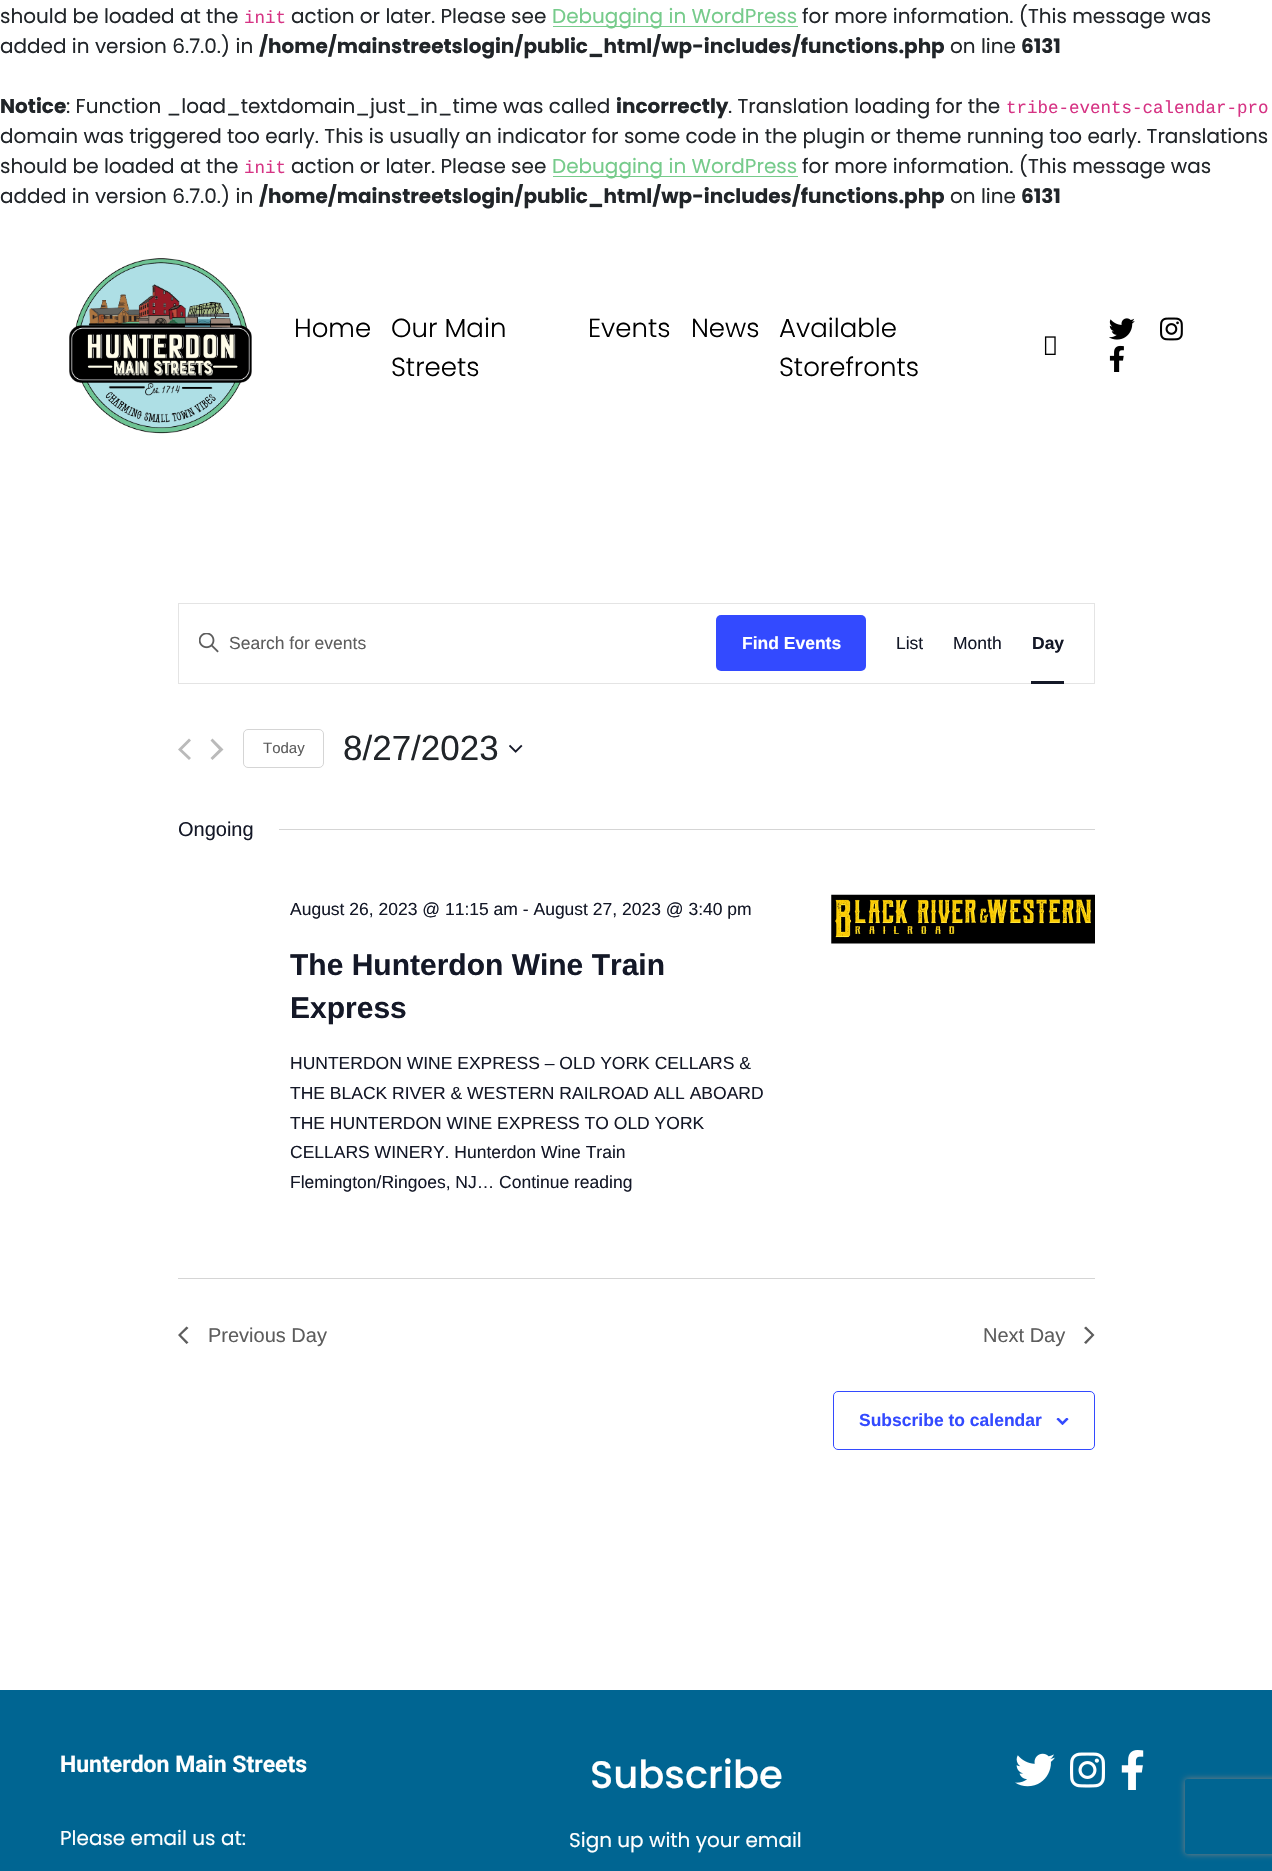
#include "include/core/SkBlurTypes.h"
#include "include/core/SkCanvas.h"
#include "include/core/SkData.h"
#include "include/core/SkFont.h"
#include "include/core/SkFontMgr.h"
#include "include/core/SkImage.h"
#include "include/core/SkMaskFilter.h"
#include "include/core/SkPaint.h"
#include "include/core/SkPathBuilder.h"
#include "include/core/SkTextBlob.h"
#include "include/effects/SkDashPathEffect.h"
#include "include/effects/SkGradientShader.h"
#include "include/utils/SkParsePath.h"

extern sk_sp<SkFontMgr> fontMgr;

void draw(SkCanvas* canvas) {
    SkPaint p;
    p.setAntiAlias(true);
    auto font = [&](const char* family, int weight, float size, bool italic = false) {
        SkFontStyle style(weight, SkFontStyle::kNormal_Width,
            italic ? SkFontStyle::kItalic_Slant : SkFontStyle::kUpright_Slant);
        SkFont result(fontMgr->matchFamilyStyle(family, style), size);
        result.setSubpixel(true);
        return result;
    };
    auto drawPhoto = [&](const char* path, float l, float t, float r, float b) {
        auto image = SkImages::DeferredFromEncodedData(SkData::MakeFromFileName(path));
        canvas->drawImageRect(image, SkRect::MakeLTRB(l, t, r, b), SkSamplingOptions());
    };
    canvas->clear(0xFFFFFFFF);
    auto font1 = font("Poppins", 400, 20);
    p.setColor(0xFF212529);
    canvas->drawString("should be loaded at the", 0, 23, font1, p);
    auto font2 = font("Liberation Mono", 400, 17.5f);
    p.setColor(0xFFD63384);
    canvas->drawString("init", 244, 23, font2, p);
    p.setColor(0xFF212529);
    canvas->drawString("action or later. Please see", 291, 23, font1, p);
    p.setColor(0xFF76CB8B);
    canvas->drawRect(SkRect::MakeLTRB(553, 26, 798, 27), p);
    canvas->drawString("Debugging in WordPress", 552, 23, font1, p);
    p.setColor(0xFF212529);
    canvas->drawString("for more information. (This message was", 802, 23, font1, p);
    canvas->drawString("added in version 6.7.0.) in", 0, 53, font1, p);
    auto font3 = font("Poppins", 700, 20);
    canvas->drawString("/home/mainstreetslogin/public_html/wp-includes/functions.php", 259, 53, font3, p);
    canvas->drawString("on line", 950, 53, font1, p);
    canvas->drawString("6131", 1021, 53, font3, p);
    canvas->drawString("Notice", 0, 113, font3, p);
    canvas->drawString(": Function _load_textdomain_just_in_time was called", 66, 113, font1, p);
    canvas->drawString("incorrectly", 616, 113, font3, p);
    canvas->drawString(". Translation loading for the", 728, 113, font1, p);
    p.setColor(0xFFD63384);
    canvas->drawString("tribe-events-calendar-pro", 1006, 113, font2, p);
    p.setColor(0xFF212529);
    canvas->drawString("domain was triggered too early. This is usually an indicator for some code in the plugin or theme running too early. Translations", 0, 143, font1, p);
    canvas->drawString("should be loaded at the", 0, 173, font1, p);
    p.setColor(0xFFD63384);
    canvas->drawString("init", 244, 173, font2, p);
    p.setColor(0xFF212529);
    canvas->drawString("action or later. Please see", 291, 173, font1, p);
    p.setColor(0xFF76CB8B);
    canvas->drawRect(SkRect::MakeLTRB(553, 176, 798, 177), p);
    canvas->drawString("Debugging in WordPress", 552, 173, font1, p);
    p.setColor(0xFF212529);
    canvas->drawString("for more information. (This message was", 802, 173, font1, p);
    canvas->drawString("added in version 6.7.0.) in", 0, 203, font1, p);
    canvas->drawString("/home/mainstreetslogin/public_html/wp-includes/functions.php", 259, 203, font3, p);
    canvas->drawString("on line", 950, 203, font1, p);
    canvas->drawString("6131", 1021, 203, font3, p);
    drawPhoto("media/1.png", 69, 258, 252, 434);
    auto font4 = font("Poppins", 300, 26);
    p.setColor(0xFF000000);
    {
        const struct { const char* s; float x, y; } items[] = {
            {"Home", 294, 337},
            {"Our Main", 391, 337},
            {"Streets", 391, 376},
            {"Events", 588, 337},
            {"News", 691, 337},
            {"Available", 779, 337},
            {"Storefronts", 779, 376},
        };
        for (auto [s, x, y] : items) {
            canvas->drawString(s, x, y, font4, p);
        }
    }
    drawPhoto("media/2.png", 1044, 336, 1056, 355);
    drawPhoto("media/3.png", 1109, 318, 1135, 340);
    drawPhoto("media/4.png", 1160, 317, 1183, 341);
    drawPhoto("media/5.png", 1109, 345, 1124, 372);
    p.setStyle(SkPaint::kStroke_Style);
    p.setStrokeWidth(1);
    p.setColor(0xFFE4E4E4);
    canvas->drawRect(SkRect::MakeLTRB(178.5f, 603.5f, 1094.5f, 683.5f), p);
    drawPhoto("media/6.png", 199, 633, 219, 653);
    auto font5 = font("Liberation Sans", 400, 17.5f);
    p.setStyle(SkPaint::kFill_Style);
    p.setColor(0xFF5D5D5D);
    canvas->drawString("Search for events", 229, 649, font5, p);
    p.setColor(0xFF334AFF);
    canvas->drawRoundRect(SkRect::MakeLTRB(716, 615, 866, 671), 5, 5, p);
    auto font6 = font("Liberation Sans", 700, 17.5f);
    p.setColor(0xFFFFFFFF);
    canvas->drawString("Find Events", 742, 649, font6, p);
    p.setColor(0xFF141827);
    canvas->drawString("List", 896, 649, font5, p);
    canvas->drawString("Month", 953, 649, font5, p);
    canvas->drawString("Day", 1032, 649, font6, p);
    canvas->drawRect(SkRect::MakeLTRB(1031, 681, 1064, 684), p);
    p.setColor(0xFFBABABA);
    canvas->drawPath(SkPathBuilder().moveTo(191, 758).lineTo(189, 760).lineTo(178, 749.5f).lineTo(189, 738.5f).lineTo(191, 740.5f).lineTo(182, 749.5f).close().moveTo(210.5f, 740.5f).lineTo(212.5f, 738.5f).lineTo(223.5f, 749.5f).lineTo(212.5f, 760).lineTo(210.5f, 758).lineTo(219, 749.5f).close().detach(), p);
    p.setStyle(SkPaint::kStroke_Style);
    p.setColor(0xFFD5D5D5);
    canvas->drawRoundRect(SkRect::MakeLTRB(243.5f, 729.5f, 323.5f, 767.5f), 4.5f, 4.5f, p);
    auto font7 = font("Liberation Sans", 400, 15);
    p.setStyle(SkPaint::kFill_Style);
    p.setColor(0xFF5D5D5D);
    canvas->drawString("Today", 263, 753, font7, p);
    auto font8 = font("Liberation Sans", 400, 35);
    p.setColor(0xFF212529);
    canvas->drawString("8/27/2023", 343, 760, font8, p);
    drawPhoto("media/7.png", 509, 744, 523, 753);
    auto font9 = font("Liberation Sans", 400, 20);
    p.setColor(0xFF141827);
    canvas->drawString("Ongoing", 178, 836, font9, p);
    p.setColor(0xFFD5D5D5);
    canvas->drawRect(SkRect::MakeLTRB(279, 829, 1095, 830), p);
    p.setColor(0xFF141827);
    canvas->drawString("August 26, 2023 @ 11:15 am - August 27, 2023 @ 3:40 pm", 290, 915, font5, p);
    auto font10 = font("Liberation Sans", 700, 30);
    canvas->drawString("The Hunterdon Wine Train", 290, 975, font10, p);
    canvas->drawString("Express", 290, 1018, font10, p);
    {
        const struct { const char* s; float x, y; } items[] = {
            {"HUNTERDON WINE EXPRESS – OLD YORK CELLARS &", 290, 1069},
            {"THE BLACK RIVER & WESTERN RAILROAD ALL ABOARD", 290, 1099},
            {"THE HUNTERDON WINE EXPRESS TO OLD YORK", 290, 1129},
            {"CELLARS WINERY. Hunterdon Wine Train", 290, 1158},
            {"Flemington/Ringoes, NJ… Continue reading", 290, 1188},
        };
        for (auto [s, x, y] : items) {
            canvas->drawString(s, x, y, font5, p);
        }
    }
    drawPhoto("media/8.png", 831, 894, 1095, 944);
    p.setColor(0xFFD5D5D5);
    canvas->drawRect(SkRect::MakeLTRB(178, 1278, 1095, 1279), p);
    p.setColor(0xFF5D5D5D);
    canvas->drawPath(SkPathBuilder().moveTo(188.5f, 1342.5f).lineTo(186.5f, 1344).lineTo(178, 1335).lineTo(186.5f, 1326.5f).lineTo(188.5f, 1328).lineTo(181, 1335).close().detach(), p);
    canvas->drawString("Previous Day", 208, 1342, font9, p);
    canvas->drawString("Next Day", 983, 1342, font9, p);
    canvas->drawPath(SkPathBuilder().moveTo(1084, 1328).lineTo(1086, 1326.5f).lineTo(1094.5f, 1335).lineTo(1086, 1344).lineTo(1084, 1342.5f).lineTo(1091.5f, 1335).close().detach(), p);
    p.setStyle(SkPaint::kStroke_Style);
    p.setColor(0xFF334AFF);
    canvas->drawRoundRect(SkRect::MakeLTRB(833.5f, 1391.5f, 1094.5f, 1449.5f), 4.5f, 4.5f, p);
    p.setStyle(SkPaint::kFill_Style);
    canvas->drawString("Subscribe to calendar", 859, 1426, font6, p);
    drawPhoto("media/9.png", 1056, 1418, 1069, 1425);
    p.setColor(0xFF006592);
    canvas->drawRect(SkRect::MakeLTRB(0, 1690, 1272, 1871), p);
    auto font11 = font("Roboto", 700, 23);
    p.setColor(0xFFFFFFFF);
    canvas->drawString("Hunterdon Main Streets", 60, 1772, font11, p);
    canvas->drawString("Please email us at:", 60, 1845, font1, p);
    auto font12 = font("Poppins", 500, 38.5f);
    canvas->drawString("Subscribe", 590, 1788, font12, p);
    canvas->drawString("Sign up with your email", 569, 1847, font1, p);
    drawPhoto("media/10.png", 1015, 1753, 1055, 1787);
    drawPhoto("media/11.png", 1070, 1752, 1105, 1788);
    drawPhoto("media/12.png", 1121, 1750, 1144, 1790);
    canvas->save();
    canvas->clipPath(SkPathBuilder(SkPathFillType::kEvenOdd).moveTo(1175, 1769).lineTo(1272, 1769).lineTo(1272, 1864).lineTo(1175, 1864).close().moveTo(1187.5f, 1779).lineTo(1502.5f, 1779).cubicTo(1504, 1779, 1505, 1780, 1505, 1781.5f).lineTo(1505, 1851.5f).cubicTo(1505, 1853, 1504, 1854, 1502.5f, 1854).lineTo(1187.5f, 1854).cubicTo(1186, 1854, 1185, 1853, 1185, 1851.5f).lineTo(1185, 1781.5f).cubicTo(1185, 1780, 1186, 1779, 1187.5f, 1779).close().detach(), true);
    p.setColor(0xFF808080);
    p.setMaskFilter(SkMaskFilter::MakeBlur(kNormal_SkBlurStyle, 3));
    canvas->drawRoundRect(SkRect::MakeLTRB(1185, 1779, 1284, 1854), 2.5f, 2.5f, p);
    p.setMaskFilter(nullptr);
    canvas->restore();
}
